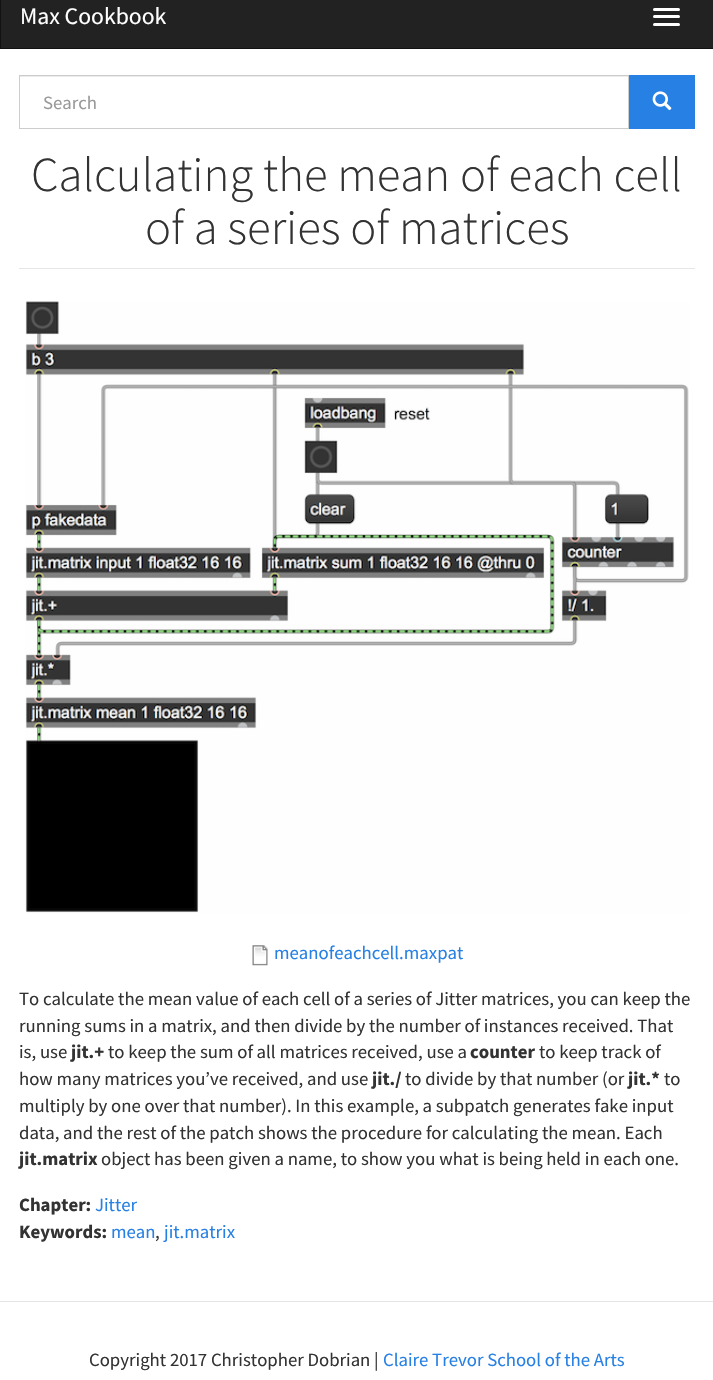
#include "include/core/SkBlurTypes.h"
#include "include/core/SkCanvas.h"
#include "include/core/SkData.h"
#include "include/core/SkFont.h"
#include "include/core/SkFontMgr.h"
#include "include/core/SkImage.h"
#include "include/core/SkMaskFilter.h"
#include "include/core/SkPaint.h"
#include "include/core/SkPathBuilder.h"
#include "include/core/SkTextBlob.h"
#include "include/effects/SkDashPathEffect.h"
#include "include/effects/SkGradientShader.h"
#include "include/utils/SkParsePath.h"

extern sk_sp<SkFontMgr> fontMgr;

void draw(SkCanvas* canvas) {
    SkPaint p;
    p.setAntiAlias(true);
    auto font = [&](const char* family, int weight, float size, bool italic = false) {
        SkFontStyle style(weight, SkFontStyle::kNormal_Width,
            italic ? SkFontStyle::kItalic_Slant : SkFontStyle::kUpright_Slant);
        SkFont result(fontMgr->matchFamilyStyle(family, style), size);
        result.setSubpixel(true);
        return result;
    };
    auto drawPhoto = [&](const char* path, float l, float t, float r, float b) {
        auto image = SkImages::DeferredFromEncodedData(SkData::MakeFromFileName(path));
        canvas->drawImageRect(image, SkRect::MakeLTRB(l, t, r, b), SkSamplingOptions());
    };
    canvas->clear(0xFFFFFFFF);
    p.setColor(0xFF222222);
    canvas->drawRect(SkRect::MakeLTRB(0.5f, -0.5f, 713.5f, 48.5f), p);
    p.setStyle(SkPaint::kStroke_Style);
    p.setStrokeWidth(1);
    p.setColor(0xFF121212);
    canvas->drawRect(SkRect::MakeLTRB(0.5f, -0.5f, 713.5f, 48.5f), p);
    auto font1 = font("Source Sans Pro", 400, 23.75f);
    p.setStyle(SkPaint::kFill_Style);
    p.setColor(0xFFFFFFFF);
    canvas->drawString("Max Cookbook", 20, 24, font1, p);
    canvas->drawRoundRect(SkRect::MakeLTRB(653, 8, 680, 11), 1.5f, 1.5f, p);
    canvas->drawRoundRect(SkRect::MakeLTRB(653, 15, 680, 18), 1.5f, 1.5f, p);
    canvas->drawRoundRect(SkRect::MakeLTRB(653, 23, 680, 26), 1.5f, 1.5f, p);
    p.setColor(0xFFECECEC);
    canvas->drawRect(SkRect::MakeLTRB(20, 76, 628, 77), p);
    p.setStyle(SkPaint::kStroke_Style);
    p.setColor(0xFFCCCCCC);
    canvas->drawRect(SkRect::MakeLTRB(19.5f, 75.5f, 628.5f, 128.5f), p);
    auto font2 = font("Source Sans Pro", 400, 18.75f);
    p.setStyle(SkPaint::kFill_Style);
    p.setColor(0xFF999999);
    canvas->drawString("Search", 43, 109, font2, p);
    p.setColor(0xFF2780E3);
    canvas->drawRect(SkRect::MakeLTRB(629, 75, 695, 129), p);
    drawPhoto("media/1.png", 652, 91, 672, 111);
    p.setColor(0xFFE6E6E6);
    canvas->drawRect(SkRect::MakeLTRB(19, 268, 695, 269), p);
    auto font3 = font("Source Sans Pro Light", 300, 48.75f);
    p.setColor(0xFF333333);
    canvas->drawString("Calculating the mean of each cell", 31, 191, font3, p);
    canvas->drawString("of a series of matrices", 145, 244, font3, p);
    drawPhoto("media/2.png", 25, 301, 689, 913);
    drawPhoto("media/3.png", 252, 945, 268, 966);
    p.setColor(0xFF2780E3);
    canvas->drawString("meanofeachcell.maxpat", 274, 959, font2, p);
    p.setColor(0xFF333333);
    {
        const struct { const char* s; float x, y; } items[] = {
            {"To calculate the mean value of each cell of a series of Jitter matrices, you can keep the", 19, 1005},
            {"running sums in a matrix, and then divide by the number of instances received. That", 19, 1032},
            {"is, use", 19, 1058},
        };
        for (auto [s, x, y] : items) {
            canvas->drawString(s, x, y, font2, p);
        }
    }
    auto font4 = font("Source Sans Pro", 700, 18.75f);
    canvas->drawString("jit.+", 71, 1058, font4, p);
    canvas->drawString("to keep the sum of all matrices received, use a", 108, 1058, font2, p);
    canvas->drawString("counter", 470, 1058, font4, p);
    canvas->drawString("to keep track of", 539, 1058, font2, p);
    canvas->drawString("how many matrices you’ve received, and use", 19, 1085, font2, p);
    canvas->drawString("jit./", 372, 1085, font4, p);
    canvas->drawString("to divide by that number (or", 405, 1085, font2, p);
    canvas->drawString("jit.*", 628, 1085, font4, p);
    {
        const struct { const char* s; float x, y; } items[] = {
            {"to", 664, 1085},
            {"multiply by one over that number). In this example, a subpatch generates fake input", 19, 1112},
            {"data, and the rest of the patch shows the procedure for calculating the mean. Each", 19, 1139},
        };
        for (auto [s, x, y] : items) {
            canvas->drawString(s, x, y, font2, p);
        }
    }
    canvas->drawString("jit.matrix", 19, 1165, font4, p);
    canvas->drawString("object has been given a name, to show you what is being held in each one.", 101, 1165, font2, p);
    canvas->drawString("Chapter:", 19, 1211, font4, p);
    p.setColor(0xFF2780E3);
    canvas->drawString("Jitter", 95, 1211, font2, p);
    p.setColor(0xFF333333);
    canvas->drawString("Keywords:", 19, 1238, font4, p);
    p.setColor(0xFF2780E3);
    canvas->drawString("mean", 111, 1238, font2, p);
    p.setColor(0xFF333333);
    canvas->drawString(",", 155, 1238, font2, p);
    p.setColor(0xFF2780E3);
    canvas->drawString("jit.matrix", 164, 1238, font2, p);
    p.setColor(0xFFE5E5E5);
    canvas->drawRect(SkRect::MakeLTRB(0, 1301, 713, 1302), p);
    p.setColor(0xFF333333);
    canvas->drawString("Copyright 2017 Christopher Dobrian |", 89, 1366, font2, p);
    p.setColor(0xFF2780E3);
    canvas->drawString("Claire Trevor School of the Arts", 383, 1366, font2, p);
}
